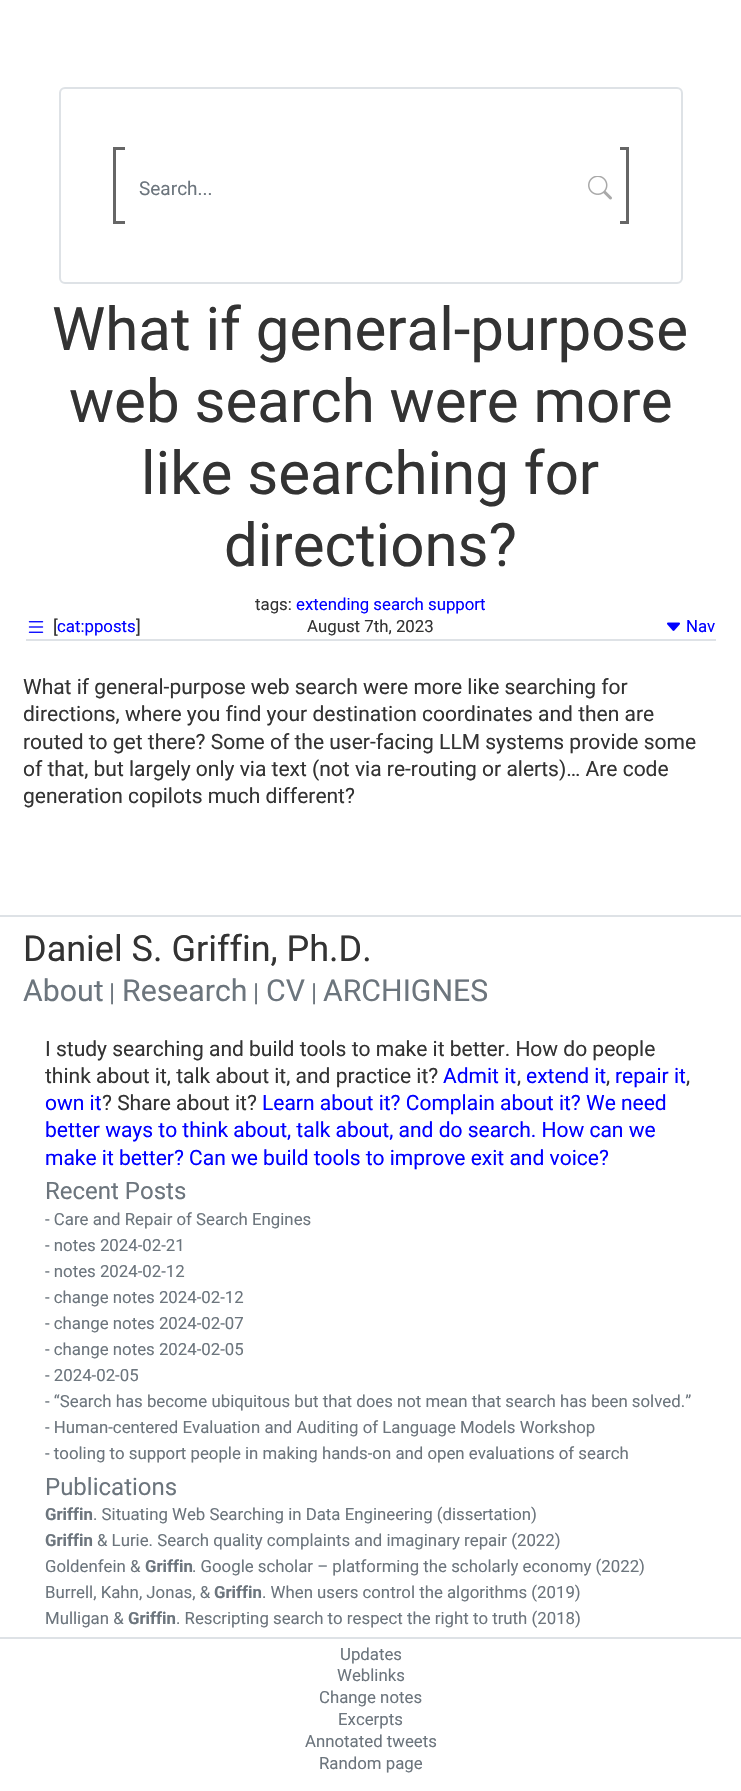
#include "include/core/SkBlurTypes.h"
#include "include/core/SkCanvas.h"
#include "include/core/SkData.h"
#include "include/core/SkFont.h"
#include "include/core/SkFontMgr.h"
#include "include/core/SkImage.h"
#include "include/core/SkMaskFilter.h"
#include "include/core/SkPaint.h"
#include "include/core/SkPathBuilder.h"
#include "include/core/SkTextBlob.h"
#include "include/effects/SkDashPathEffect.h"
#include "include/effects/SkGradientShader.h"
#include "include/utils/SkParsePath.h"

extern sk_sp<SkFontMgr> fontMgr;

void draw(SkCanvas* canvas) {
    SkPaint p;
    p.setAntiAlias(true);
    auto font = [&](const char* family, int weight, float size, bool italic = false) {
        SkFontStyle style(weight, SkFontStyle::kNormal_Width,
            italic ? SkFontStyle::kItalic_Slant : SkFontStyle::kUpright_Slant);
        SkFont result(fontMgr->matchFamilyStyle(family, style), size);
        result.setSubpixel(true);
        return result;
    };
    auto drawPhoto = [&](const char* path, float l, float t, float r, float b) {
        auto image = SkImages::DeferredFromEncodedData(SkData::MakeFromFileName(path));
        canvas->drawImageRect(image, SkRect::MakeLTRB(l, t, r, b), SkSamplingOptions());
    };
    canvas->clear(0xFFFFFFFF);
    p.setStyle(SkPaint::kStroke_Style);
    p.setStrokeWidth(2);
    p.setColor(0xFFDEE2E6);
    canvas->drawRoundRect(SkRect::MakeLTRB(60, 88, 682, 283), 5, 5, p);
    p.setStyle(SkPaint::kFill_Style);
    {
        const struct { float l, t, r, b; SkColor color; } items[] = {
            {113, 147, 125, 150, 0xFF666666},
            {113, 221, 125, 224, 0xFF666666},
            {113, 147, 116, 224, 0xFF666666},
        };
        for (auto [l, t, r, b, color] : items) {
            p.setColor(color);
            canvas->drawRect(SkRect::MakeLTRB(l, t, r, b), p);
        }
    }
    auto font1 = font("Roboto", 400, 19);
    p.setColor(0xFF6C757D);
    canvas->drawString("Search...", 139, 195, font1, p);
    drawPhoto("media/1.png", 588, 176, 612, 200);
    {
        const struct { float l, t, r, b; SkColor color; } items[] = {
            {620, 147, 629, 150, 0xFF666666},
            {626, 147, 629, 224, 0xFF666666},
            {620, 221, 629, 224, 0xFF666666},
        };
        for (auto [l, t, r, b, color] : items) {
            p.setColor(color);
            canvas->drawRect(SkRect::MakeLTRB(l, t, r, b), p);
        }
    }
    auto font2 = font("Roboto", 400, 60);
    p.setColor(0xFF333333);
    {
        const struct { const char* s; float x, y; } items[] = {
            {"What if general-purpose", 52, 350},
            {"web search were more", 69, 422},
            {"like searching for", 141, 494},
            {"directions?", 224, 566},
        };
        for (auto [s, x, y] : items) {
            canvas->drawString(s, x, y, font2, p);
        }
    }
    p.setColor(0xFFDEE2E6);
    canvas->drawRect(SkRect::MakeLTRB(26, 639, 716, 641), p);
    drawPhoto("media/2.png", 28, 621, 44, 633);
    auto font3 = font("Roboto", 400, 18);
    p.setColor(0xFF333333);
    canvas->drawString("[", 53, 633, font3, p);
    auto font4 = font("Roboto", 400, 16.8f);
    p.setColor(0xFF0000FF);
    canvas->drawString("cat:pposts", 57, 632, font4, p);
    p.setColor(0xFF333333);
    canvas->drawString("]", 136, 633, font3, p);
    canvas->drawString("tags:", 255, 610, font4, p);
    p.setColor(0xFF0000FF);
    canvas->drawString("extending search support", 296, 610, font4, p);
    p.setColor(0xFF333333);
    canvas->drawString("August 7th, 2023", 307, 632, font4, p);
    drawPhoto("media/3.png", 667, 622, 680, 631);
    p.setColor(0xFF0000FF);
    canvas->drawString("Nav", 686, 632, font4, p);
    auto font5 = font("Roboto", 400, 21);
    p.setColor(0xFF333333);
    {
        const struct { const char* s; float x, y; } items[] = {
            {"What if general-purpose web search were more like searching for", 23, 694},
            {"directions, where you find your destination coordinates and then are", 23, 721},
            {"routed to get there? Some of the user-facing LLM systems provide some", 23, 749},
            {"of that, but largely only via text (not via re-routing or alerts)… Are code", 23, 776},
            {"generation copilots much different?", 23, 803},
        };
        for (auto [s, x, y] : items) {
            canvas->drawString(s, x, y, font5, p);
        }
    }
    p.setColor(0xFFDEE2E6);
    canvas->drawRect(SkRect::MakeLTRB(0, 915, 741, 917), p);
    auto font6 = font("Roboto", 400, 36);
    p.setColor(0xFF333333);
    canvas->drawString("Daniel S. Griffin, Ph.D.", 23, 961, font6, p);
    auto font7 = font("Roboto", 400, 30.25f);
    p.setColor(0xFF6C757D);
    canvas->drawString("About", 23, 1001, font7, p);
    auto font8 = font("Roboto", 400, 25);
    canvas->drawString("|", 109, 1001, font8, p);
    canvas->drawString("Research", 122, 1001, font7, p);
    canvas->drawString("|", 253, 1001, font8, p);
    canvas->drawString("CV", 266, 1001, font7, p);
    canvas->drawString("|", 311, 1001, font8, p);
    canvas->drawString("ARCHIGNES", 323, 1001, font7, p);
    p.setColor(0xFF333333);
    canvas->drawString("I study searching and build tools to make it better. How do people", 45, 1056, font5, p);
    canvas->drawString("think about it, talk about it, and practice it?", 45, 1083, font5, p);
    p.setColor(0xFF0000FF);
    canvas->drawString("Admit it", 443, 1083, font5, p);
    p.setColor(0xFF333333);
    canvas->drawString(",", 517, 1083, font5, p);
    p.setColor(0xFF0000FF);
    canvas->drawString("extend it", 526, 1083, font5, p);
    p.setColor(0xFF333333);
    canvas->drawString(",", 606, 1083, font5, p);
    p.setColor(0xFF0000FF);
    canvas->drawString("repair it", 615, 1083, font5, p);
    p.setColor(0xFF333333);
    canvas->drawString(",", 686, 1083, font5, p);
    p.setColor(0xFF0000FF);
    canvas->drawString("own it", 45, 1110, font5, p);
    p.setColor(0xFF333333);
    canvas->drawString("? Share about it?", 102, 1110, font5, p);
    p.setColor(0xFF0000FF);
    {
        const struct { const char* s; float x, y; } items[] = {
            {"Learn about it? Complain about it? We need", 262, 1110},
            {"better ways to think about, talk about, and do search. How can we", 45, 1137},
            {"make it better? Can we build tools to improve exit and voice?", 45, 1165},
        };
        for (auto [s, x, y] : items) {
            canvas->drawString(s, x, y, font5, p);
        }
    }
    auto font9 = font("Roboto", 400, 24);
    p.setColor(0xFF6C757D);
    canvas->drawString("Recent Posts", 45, 1199, font9, p);
    {
        const struct { const char* s; float x, y; } items[] = {
            {"- Care and Repair of Search Engines", 45, 1225},
            {"- notes 2024-02-21", 45, 1251},
            {"- notes 2024-02-12", 45, 1277},
            {"- change notes 2024-02-12", 45, 1303},
            {"- change notes 2024-02-07", 45, 1329},
            {"- change notes 2024-02-05", 45, 1355},
            {"- 2024-02-05", 45, 1381},
            {"- “Search has become ubiquitous but that does not mean that search has been solved.”", 45, 1407},
            {"- Human-centered Evaluation and Auditing of Language Models Workshop", 45, 1433},
            {"- tooling to support people in making hands-on and open evaluations of search", 45, 1459},
        };
        for (auto [s, x, y] : items) {
            canvas->drawString(s, x, y, font4, p);
        }
    }
    canvas->drawString("Publications", 45, 1495, font9, p);
    auto font10 = font("Roboto", 700, 16.8f);
    canvas->drawString("Griffin", 45, 1520, font10, p);
    canvas->drawString(". Situating Web Searching in Data Engineering (dissertation)", 93, 1520, font4, p);
    canvas->drawString("Griffin", 45, 1546, font10, p);
    canvas->drawString("& Lurie. Search quality complaints and imaginary repair (2022)", 97, 1546, font4, p);
    canvas->drawString("Goldenfein &", 45, 1572, font4, p);
    canvas->drawString("Griffin", 145, 1572, font10, p);
    canvas->drawString(". Google scholar – platforming the scholarly economy (2022)", 192, 1572, font4, p);
    canvas->drawString("Burrell, Kahn, Jonas, &", 45, 1598, font4, p);
    canvas->drawString("Griffin", 214, 1598, font10, p);
    canvas->drawString(". When users control the algorithms (2019)", 262, 1598, font4, p);
    canvas->drawString("Mulligan &", 45, 1624, font4, p);
    canvas->drawString("Griffin", 128, 1624, font10, p);
    canvas->drawString(". Rescripting search to respect the right to truth (2018)", 176, 1624, font4, p);
    p.setColor(0xFFDEE2E6);
    canvas->drawRect(SkRect::MakeLTRB(0, 1637, 741, 1639), p);
    p.setColor(0xFF6C757D);
    {
        const struct { const char* s; float x, y; } items[] = {
            {"Updates", 340, 1660},
            {"Weblinks", 337, 1681},
            {"Change notes", 319, 1703},
            {"Excerpts", 338, 1725},
            {"Annotated tweets", 305, 1747},
            {"Random page", 319, 1769},
        };
        for (auto [s, x, y] : items) {
            canvas->drawString(s, x, y, font4, p);
        }
    }
}
